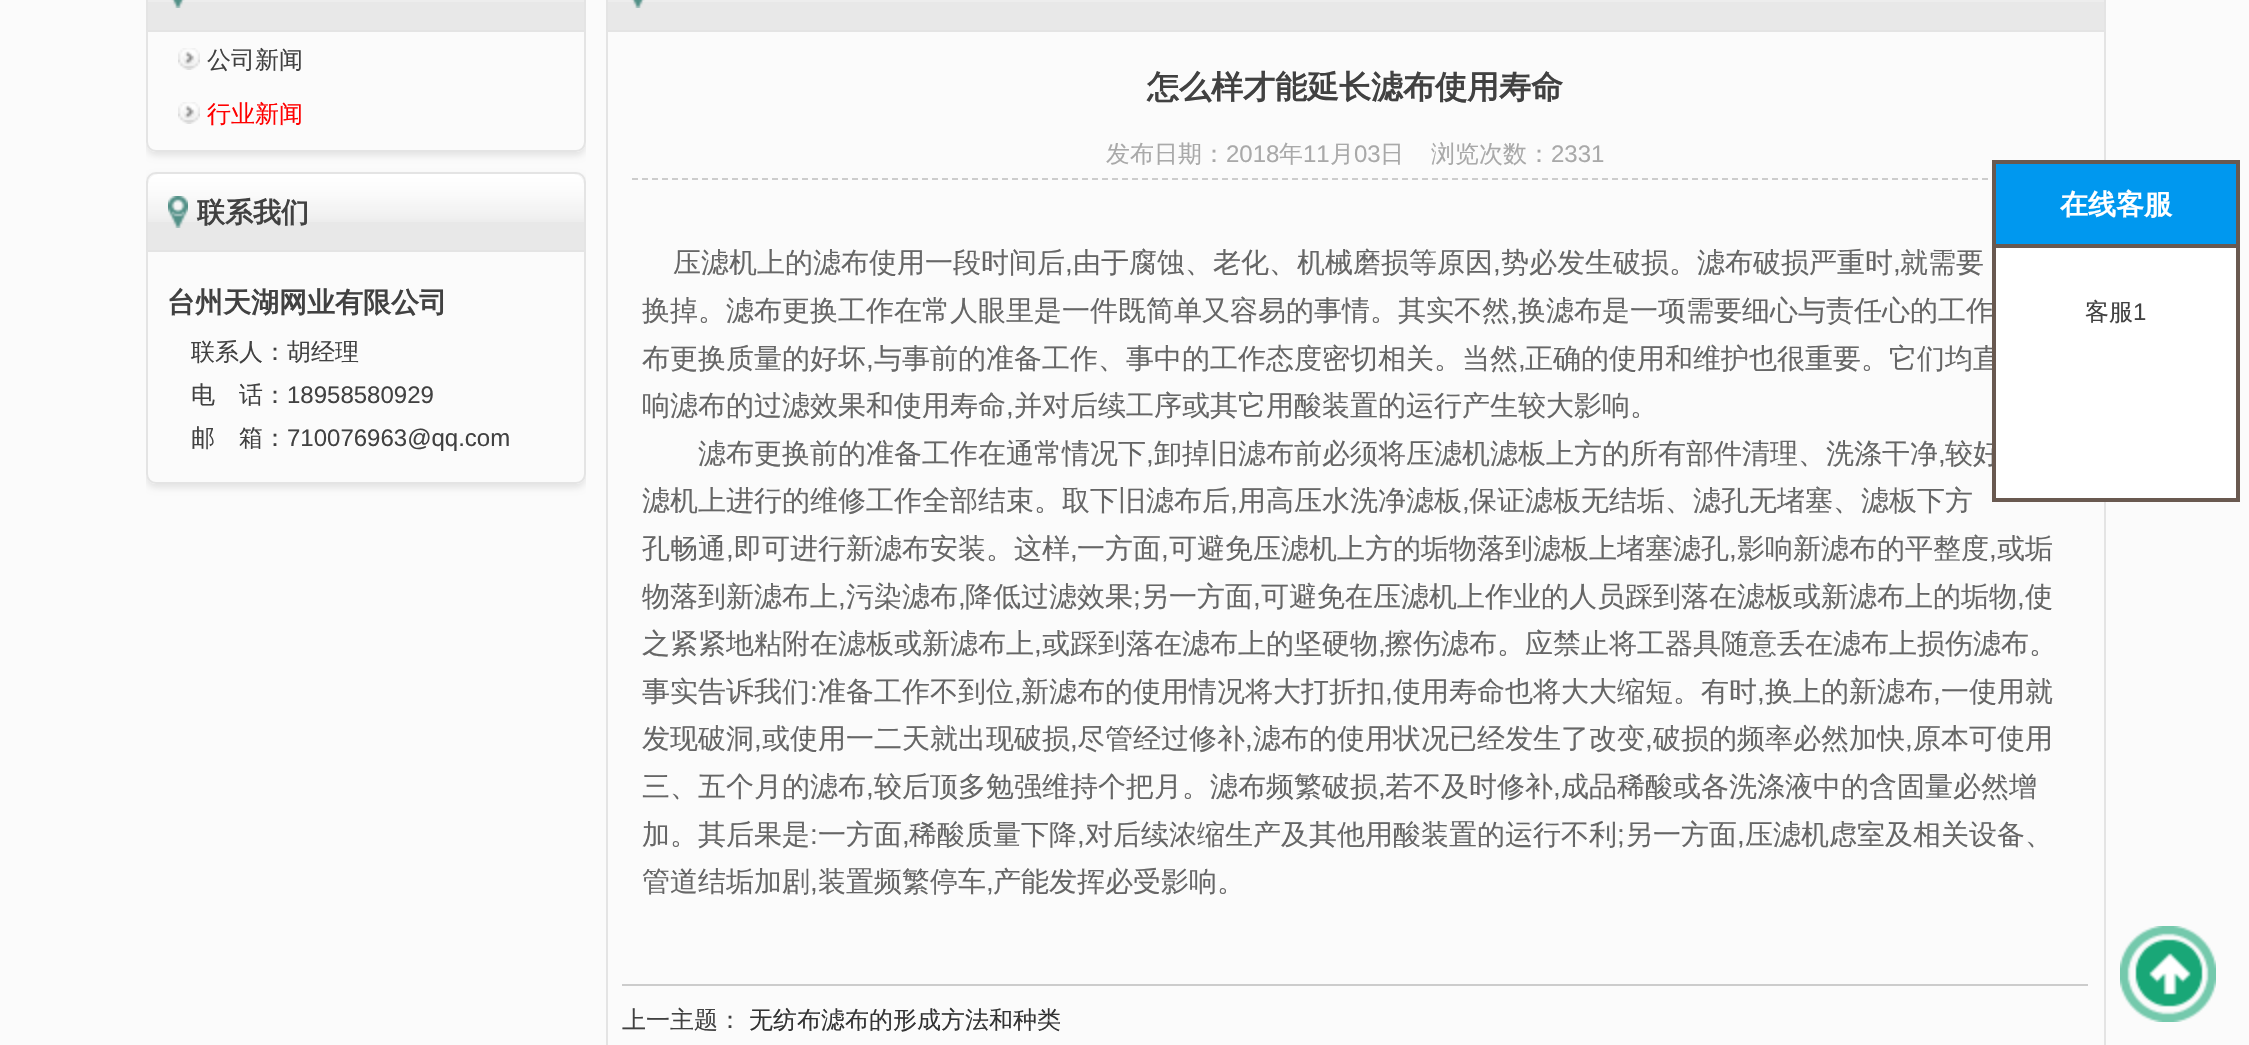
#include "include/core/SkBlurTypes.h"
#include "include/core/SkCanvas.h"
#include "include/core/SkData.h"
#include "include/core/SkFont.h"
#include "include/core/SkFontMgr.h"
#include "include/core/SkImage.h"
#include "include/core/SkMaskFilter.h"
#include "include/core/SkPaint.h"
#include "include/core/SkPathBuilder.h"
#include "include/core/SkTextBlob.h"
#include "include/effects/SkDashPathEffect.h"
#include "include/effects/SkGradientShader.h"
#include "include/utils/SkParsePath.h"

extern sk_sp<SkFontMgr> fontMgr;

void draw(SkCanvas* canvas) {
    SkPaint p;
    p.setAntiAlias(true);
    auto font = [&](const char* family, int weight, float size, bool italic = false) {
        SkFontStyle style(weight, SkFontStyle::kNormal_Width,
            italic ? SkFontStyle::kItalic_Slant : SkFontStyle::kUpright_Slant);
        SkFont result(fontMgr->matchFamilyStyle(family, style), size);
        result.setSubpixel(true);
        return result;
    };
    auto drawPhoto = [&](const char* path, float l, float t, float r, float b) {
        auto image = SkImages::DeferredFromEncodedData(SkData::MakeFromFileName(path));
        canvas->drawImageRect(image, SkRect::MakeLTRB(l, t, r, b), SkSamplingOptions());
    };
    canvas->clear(0xFFFBFBFB);
    canvas->save();
    canvas->clipRect(SkRect::MakeLTRB(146, 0, 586, 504));
    canvas->clipPath(SkPathBuilder(SkPathFillType::kEvenOdd).moveTo(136, 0).lineTo(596, 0).lineTo(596, 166).lineTo(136, 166).close().moveTo(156, -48).lineTo(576, -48).cubicTo(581.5f, -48, 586, -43.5f, 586, -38).lineTo(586, 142).cubicTo(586, 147.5f, 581.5f, 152, 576, 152).lineTo(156, 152).cubicTo(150.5f, 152, 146, 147.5f, 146, 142).lineTo(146, -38).cubicTo(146, -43.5f, 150.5f, -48, 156, -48).close().detach(), true);
    p.setColor(0xFFE4E4E4);
    p.setMaskFilter(SkMaskFilter::MakeBlur(kNormal_SkBlurStyle, 3));
    canvas->drawRoundRect(SkRect::MakeLTRB(146, -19, 586, 156), 10, 10, p);
    p.setMaskFilter(nullptr);
    canvas->restore();
    p.setStyle(SkPaint::kStroke_Style);
    p.setStrokeWidth(2);
    canvas->drawRoundRect(SkRect::MakeLTRB(147, -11, 585, 151), 9, 9, p);
    p.setStyle(SkPaint::kFill_Style);
    {
        const struct { float l, t, r, b; SkColor color; } items[] = {
            {148, 2, 584, 30, 0xFFE8E8E8},
            {148, 0, 584, 2, 0xFFEDEDED},
            {148, 30, 584, 32, 0xFFE4E4E4},
        };
        for (auto [l, t, r, b, color] : items) {
            p.setColor(color);
            canvas->drawRect(SkRect::MakeLTRB(l, t, r, b), p);
        }
    }
    drawPhoto("media/1.png", 171, 0, 185, 8);
    drawPhoto("media/2.png", 178, 48, 200, 70);
    auto font1 = font("WenQuanYi Zen Hei", 500, 24);
    p.setColor(0xFF414141);
    canvas->drawString("公司新闻", 207, 68, font1, p);
    drawPhoto("media/2.png", 178, 102, 200, 124);
    p.setColor(0xFFFF0000);
    canvas->drawString("行业新闻", 207, 122, font1, p);
    canvas->save();
    canvas->clipRect(SkRect::MakeLTRB(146, 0, 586, 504));
    canvas->clipPath(SkPathBuilder(SkPathFillType::kEvenOdd).moveTo(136, 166).lineTo(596, 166).lineTo(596, 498).lineTo(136, 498).close().moveTo(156, 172).lineTo(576, 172).cubicTo(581.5f, 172, 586, 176.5f, 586, 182).lineTo(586, 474).cubicTo(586, 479.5f, 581.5f, 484, 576, 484).lineTo(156, 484).cubicTo(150.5f, 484, 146, 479.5f, 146, 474).lineTo(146, 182).cubicTo(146, 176.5f, 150.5f, 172, 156, 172).close().detach(), true);
    p.setColor(0xFFE4E4E4);
    p.setMaskFilter(SkMaskFilter::MakeBlur(kNormal_SkBlurStyle, 3));
    canvas->drawRoundRect(SkRect::MakeLTRB(146, 176, 586, 488), 10, 10, p);
    p.setMaskFilter(nullptr);
    canvas->restore();
    p.setStyle(SkPaint::kStroke_Style);
    canvas->drawRoundRect(SkRect::MakeLTRB(147, 173, 585, 483), 9, 9, p);
    p.setStyle(SkPaint::kFill_Style);
    p.setColor(0xFFE8E8E8);
    canvas->drawPath(SkPathBuilder().moveTo(158, 174).lineTo(574, 174).cubicTo(579.5f, 174, 584, 178.5f, 584, 184).lineTo(584, 252).lineTo(148, 252).lineTo(148, 184).cubicTo(148, 178.5f, 152.5f, 174, 158, 174).close().detach(), p);
    drawPhoto("media/3.png", 148, 174, 584, 222);
    p.setColor(0xFFE4E4E4);
    canvas->drawRect(SkRect::MakeLTRB(148, 250, 584, 252), p);
    drawPhoto("media/4.png", 168, 196, 188, 228);
    auto font2 = font("WenQuanYi Zen Hei", 700, 28);
    p.setColor(0xFF414141);
    canvas->drawString("联系我们", 197, 222, font2, p);
    canvas->drawString("台州天湖网业有限公司", 167, 312, font2, p);
    canvas->drawString("联系人：胡经理", 191, 360, font1, p);
    canvas->drawString("电　话：", 191, 403, font1, p);
    auto font3 = font("Liberation Sans", 400, 24);
    canvas->drawString("18958580929", 287, 403, font3, p);
    canvas->drawString("邮　箱：", 191, 446, font1, p);
    canvas->drawString("710076963@qq.com", 287, 446, font3, p);
    p.setStyle(SkPaint::kStroke_Style);
    p.setColor(0xFFE4E4E4);
    canvas->drawRect(SkRect::MakeLTRB(607, -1, 2105, 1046), p);
    p.setStyle(SkPaint::kFill_Style);
    {
        const struct { float l, t, r, b; SkColor color; } items[] = {
            {608, 2, 2104, 30, 0xFFE8E8E8},
            {608, 0, 2104, 2, 0xFFEDEDED},
            {608, 30, 2104, 32, 0xFFE4E4E4},
        };
        for (auto [l, t, r, b, color] : items) {
            p.setColor(color);
            canvas->drawRect(SkRect::MakeLTRB(l, t, r, b), p);
        }
    }
    drawPhoto("media/1.png", 631, 0, 645, 8);
    auto font4 = font("WenQuanYi Zen Hei", 700, 32);
    p.setColor(0xFF414141);
    canvas->drawString("怎么样才能延长滤布使用寿命", 1147, 98, font4, p);
    p.setStyle(SkPaint::kStroke_Style);
    p.setColor(0xFFCCCCCC);
    p.setPathEffect(SkDashPathEffect::Make({{6, 4}}, 0));
    canvas->drawPath(SkPathBuilder().moveTo(632, 179).lineTo(2078, 179).detach(), p);
    p.setPathEffect(nullptr);
    p.setStyle(SkPaint::kFill_Style);
    p.setColor(0xFFA9A9A9);
    canvas->drawString("发布日期：", 1106, 162, font1, p);
    canvas->drawString("2018", 1226, 162, font3, p);
    canvas->drawString("年", 1279, 162, font1, p);
    canvas->drawString("11", 1303, 162, font3, p);
    canvas->drawString("月", 1330, 162, font1, p);
    canvas->drawString("03", 1354, 162, font3, p);
    canvas->drawString("日", 1380, 162, font1, p);
    canvas->drawString("浏览次数：", 1431, 162, font1, p);
    canvas->drawString("2331", 1551, 162, font3, p);
    auto font5 = font("WenQuanYi Zen Hei", 500, 28);
    p.setColor(0xFF666666);
    canvas->drawString("压滤机上的滤布使用一段时间后", 673, 272, font5, p);
    auto font6 = font("Liberation Sans", 400, 28);
    canvas->drawString(",", 1065, 272, font6, p);
    canvas->drawString("由于腐蚀、老化、机械磨损等原因", 1073, 272, font5, p);
    canvas->drawString(",", 1493, 272, font6, p);
    canvas->drawString("势必发生破损。滤布破损严重时", 1501, 272, font5, p);
    canvas->drawString(",", 1893, 272, font6, p);
    canvas->drawString("就需要", 1900, 272, font5, p);
    canvas->drawString("换掉。滤布更换工作在常人眼里是一件既简单又容易的事情。其实不然", 642, 320, font5, p);
    canvas->drawString(",", 1510, 320, font6, p);
    canvas->drawString("换滤布是一项需要细心与责任心的工作", 1518, 320, font5, p);
    canvas->drawString("布更换质量的好坏", 642, 368, font5, p);
    canvas->drawString(",", 866, 368, font6, p);
    canvas->drawString("与事前的准备工作、事中的工作态度密切相关。当然", 874, 368, font5, p);
    canvas->drawString(",", 1518, 368, font6, p);
    canvas->drawString("正确的使用和维护也很重要。它们均直", 1525, 368, font5, p);
    canvas->drawString("响滤布的过滤效果和使用寿命", 642, 415, font5, p);
    canvas->drawString(",", 1006, 415, font6, p);
    canvas->drawString("并对后续工序或其它用酸装置的运行产生较大影响。", 1014, 415, font5, p);
    canvas->drawString("滤布更换前的准备工作在通常情况下", 698, 463, font5, p);
    canvas->drawString(",", 1146, 463, font6, p);
    canvas->drawString("卸掉旧滤布前必须将压滤机滤板上方的所有部件清理、洗涤干净", 1154, 463, font5, p);
    canvas->drawString(",", 1938, 463, font6, p);
    canvas->drawString("较好", 1945, 463, font5, p);
    canvas->drawString("滤机上进行的维修工作全部结束。取下旧滤布后", 642, 510, font5, p);
    canvas->drawString(",", 1230, 510, font6, p);
    canvas->drawString("用高压水洗净滤板", 1238, 510, font5, p);
    canvas->drawString(",", 1462, 510, font6, p);
    canvas->drawString("保证滤板无结垢、滤孔无堵塞、滤板下方", 1469, 510, font5, p);
    canvas->drawString("孔畅通", 642, 558, font5, p);
    canvas->drawString(",", 726, 558, font6, p);
    canvas->drawString("即可进行新滤布安装。这样", 734, 558, font5, p);
    canvas->drawString(",", 1070, 558, font6, p);
    canvas->drawString("一方面", 1077, 558, font5, p);
    canvas->drawString(",", 1161, 558, font6, p);
    canvas->drawString("可避免压滤机上方的垢物落到滤板上堵塞滤孔", 1169, 558, font5, p);
    canvas->drawString(",", 1729, 558, font6, p);
    canvas->drawString("影响新滤布的平整度", 1737, 558, font5, p);
    canvas->drawString(",", 1989, 558, font6, p);
    canvas->drawString("或垢", 1997, 558, font5, p);
    canvas->drawString("物落到新滤布上", 642, 606, font5, p);
    canvas->drawString(",", 838, 606, font6, p);
    canvas->drawString("污染滤布", 846, 606, font5, p);
    canvas->drawString(",", 958, 606, font6, p);
    canvas->drawString("降低过滤效果", 965, 606, font5, p);
    canvas->drawString(";", 1133, 606, font6, p);
    canvas->drawString("另一方面", 1141, 606, font5, p);
    canvas->drawString(",", 1253, 606, font6, p);
    canvas->drawString("可避免在压滤机上作业的人员踩到落在滤板或新滤布上的垢物", 1261, 606, font5, p);
    canvas->drawString(",", 2017, 606, font6, p);
    canvas->drawString("使", 2025, 606, font5, p);
    canvas->drawString("之紧紧地粘附在滤板或新滤布上", 642, 653, font5, p);
    canvas->drawString(",", 1034, 653, font6, p);
    canvas->drawString("或踩到落在滤布上的坚硬物", 1042, 653, font5, p);
    canvas->drawString(",", 1378, 653, font6, p);
    canvas->drawString("擦伤滤布。应禁止将工器具随意丢在滤布上损伤滤布。", 1385, 653, font5, p);
    canvas->drawString("事实告诉我们", 642, 701, font5, p);
    canvas->drawString(":", 810, 701, font6, p);
    canvas->drawString("准备工作不到位", 818, 701, font5, p);
    canvas->drawString(",", 1014, 701, font6, p);
    canvas->drawString("新滤布的使用情况将大打折扣", 1021, 701, font5, p);
    canvas->drawString(",", 1385, 701, font6, p);
    canvas->drawString("使用寿命也将大大缩短。有时", 1393, 701, font5, p);
    canvas->drawString(",", 1757, 701, font6, p);
    canvas->drawString("换上的新滤布", 1765, 701, font5, p);
    canvas->drawString(",", 1933, 701, font6, p);
    canvas->drawString("一使用就", 1941, 701, font5, p);
    canvas->drawString("发现破洞", 642, 748, font5, p);
    canvas->drawString(",", 754, 748, font6, p);
    canvas->drawString("或使用一二天就出现破损", 762, 748, font5, p);
    canvas->drawString(",", 1070, 748, font6, p);
    canvas->drawString("尽管经过修补", 1077, 748, font5, p);
    canvas->drawString(",", 1245, 748, font6, p);
    canvas->drawString("滤布的使用状况已经发生了改变", 1253, 748, font5, p);
    canvas->drawString(",", 1645, 748, font6, p);
    canvas->drawString("破损的频率必然加快", 1653, 748, font5, p);
    canvas->drawString(",", 1905, 748, font6, p);
    canvas->drawString("原本可使用", 1913, 748, font5, p);
    canvas->drawString("三、五个月的滤布", 642, 796, font5, p);
    canvas->drawString(",", 866, 796, font6, p);
    canvas->drawString("较后顶多勉强维持个把月。滤布频繁破损", 874, 796, font5, p);
    canvas->drawString(",", 1378, 796, font6, p);
    canvas->drawString("若不及时修补", 1385, 796, font5, p);
    canvas->drawString(",", 1553, 796, font6, p);
    canvas->drawString("成品稀酸或各洗涤液中的含固量必然增", 1561, 796, font5, p);
    canvas->drawString("加。其后果是", 642, 844, font5, p);
    canvas->drawString(":", 810, 844, font6, p);
    canvas->drawString("一方面", 818, 844, font5, p);
    canvas->drawString(",", 902, 844, font6, p);
    canvas->drawString("稀酸质量下降", 909, 844, font5, p);
    canvas->drawString(",", 1077, 844, font6, p);
    canvas->drawString("对后续浓缩生产及其他用酸装置的运行不利", 1085, 844, font5, p);
    canvas->drawString(";", 1617, 844, font6, p);
    canvas->drawString("另一方面", 1625, 844, font5, p);
    canvas->drawString(",", 1737, 844, font6, p);
    canvas->drawString("压滤机虑室及相关设备、", 1745, 844, font5, p);
    canvas->drawString("管道结垢加剧", 642, 891, font5, p);
    canvas->drawString(",", 810, 891, font6, p);
    canvas->drawString("装置频繁停车", 818, 891, font5, p);
    canvas->drawString(",", 986, 891, font6, p);
    canvas->drawString("产能发挥必受影响。", 993, 891, font5, p);
    p.setColor(0xFFCCCCCC);
    canvas->drawRect(SkRect::MakeLTRB(622, 984, 2088, 986), p);
    p.setColor(0xFF414141);
    canvas->drawString("上一主题：", 622, 1028, font1, p);
    p.setColor(0xFF333333);
    canvas->drawString("无纺布滤布的形成方法和种类", 749, 1028, font1, p);
    p.setStyle(SkPaint::kStroke_Style);
    p.setStrokeWidth(4);
    p.setColor(0xFF695950);
    canvas->drawRect(SkRect::MakeLTRB(1994, 162, 2238, 500), p);
    p.setStyle(SkPaint::kFill_Style);
    p.setColor(0xFFFFFFFF);
    canvas->drawRect(SkRect::MakeLTRB(1996, 248, 2236, 498), p);
    p.setColor(0xFF0098EF);
    canvas->drawRect(SkRect::MakeLTRB(1996, 164, 2236, 244), p);
    p.setColor(0xFFFFFFFF);
    canvas->drawString("在线客服", 2060, 214, font2, p);
    p.setColor(0xFF695950);
    canvas->drawRect(SkRect::MakeLTRB(1996, 244, 2236, 248), p);
    p.setColor(0xFF414141);
    canvas->drawString("客服", 2085, 320, font1, p);
    canvas->drawString("1", 2133, 320, font3, p);
    drawPhoto("media/5.png", 2120, 926, 2216, 1022);
}
